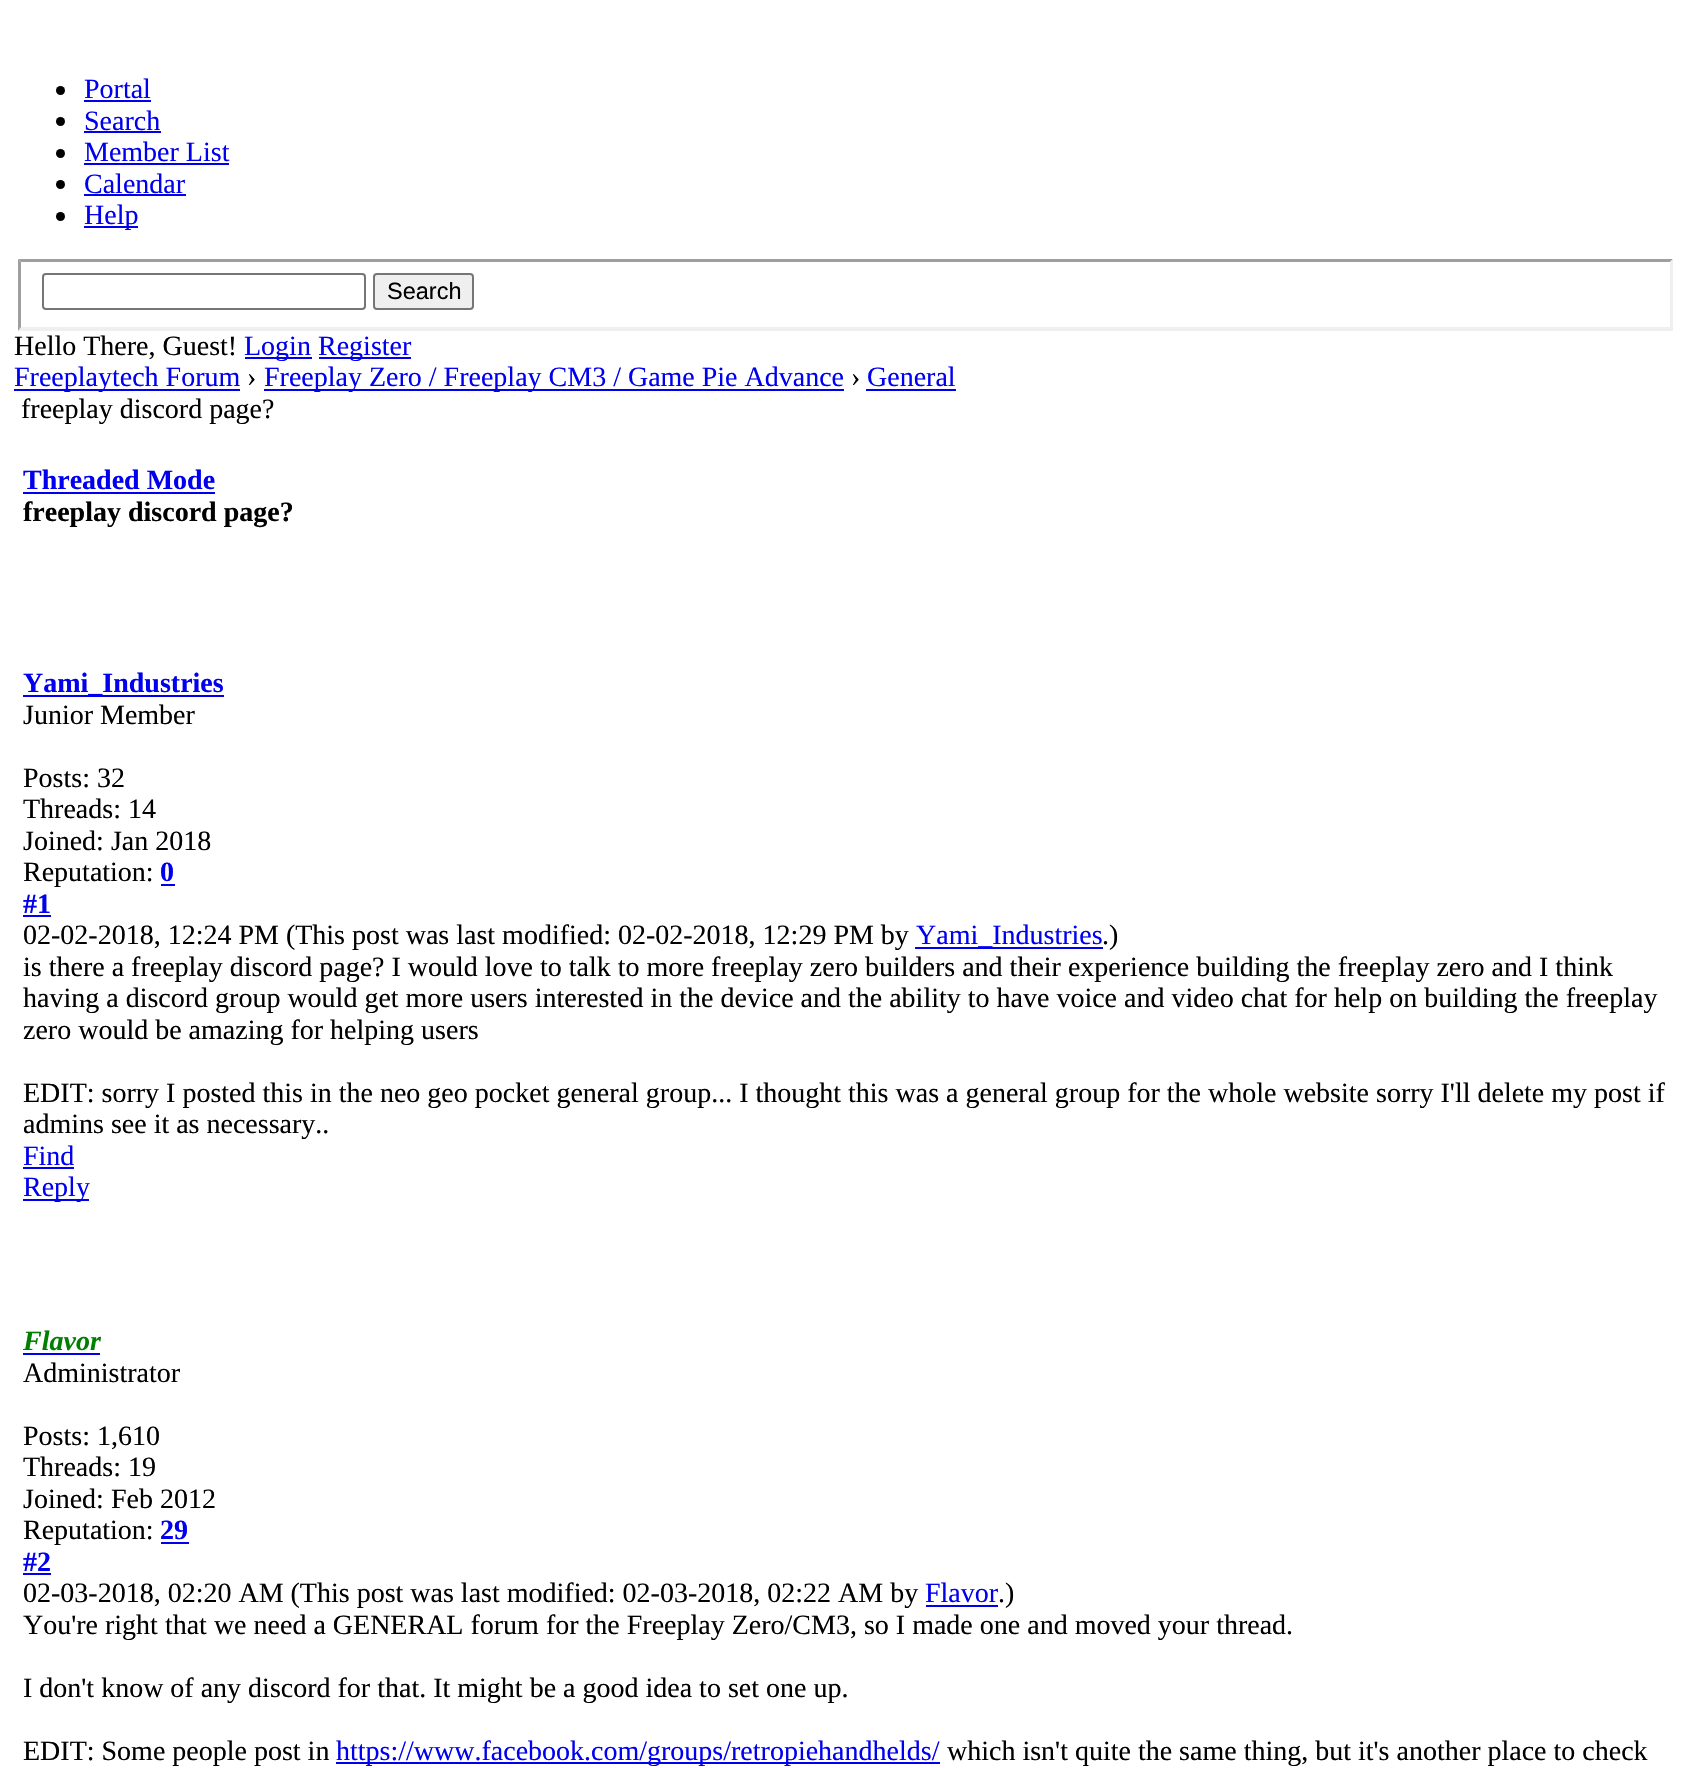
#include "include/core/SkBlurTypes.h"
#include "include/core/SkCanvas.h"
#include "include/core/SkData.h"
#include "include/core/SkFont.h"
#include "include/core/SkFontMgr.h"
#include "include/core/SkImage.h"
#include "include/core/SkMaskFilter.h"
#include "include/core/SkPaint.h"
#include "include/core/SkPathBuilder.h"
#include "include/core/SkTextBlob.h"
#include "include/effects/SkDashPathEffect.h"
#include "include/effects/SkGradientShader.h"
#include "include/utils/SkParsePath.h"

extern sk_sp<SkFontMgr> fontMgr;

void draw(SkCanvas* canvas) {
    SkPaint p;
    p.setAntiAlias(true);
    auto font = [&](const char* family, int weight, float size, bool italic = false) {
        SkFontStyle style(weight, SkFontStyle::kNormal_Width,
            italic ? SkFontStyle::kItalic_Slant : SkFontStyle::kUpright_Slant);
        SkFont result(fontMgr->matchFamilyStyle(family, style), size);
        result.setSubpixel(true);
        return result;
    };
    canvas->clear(0xFFFFFFFF);
    p.setColor(0xFF000000);
    canvas->drawCircle(60.5f, 90.5f, 4.5f, p);
    auto font1 = font("Liberation Serif", 400, 28);
    p.setColor(0xFF0000EE);
    canvas->drawString("Portal", 84, 98, font1, p);
    canvas->drawRect(SkRect::MakeLTRB(84, 100, 151, 102), p);
    p.setColor(0xFF000000);
    canvas->drawCircle(60.5f, 121.5f, 4.5f, p);
    p.setColor(0xFF0000EE);
    canvas->drawString("Search", 84, 130, font1, p);
    canvas->drawRect(SkRect::MakeLTRB(84, 131, 161, 133), p);
    p.setColor(0xFF000000);
    canvas->drawCircle(60.5f, 153.5f, 4.5f, p);
    p.setColor(0xFF0000EE);
    canvas->drawString("Member List", 84, 161, font1, p);
    canvas->drawRect(SkRect::MakeLTRB(84, 163, 229, 165), p);
    p.setColor(0xFF000000);
    canvas->drawCircle(60.5f, 184.5f, 4.5f, p);
    p.setColor(0xFF0000EE);
    canvas->drawString("Calendar", 84, 193, font1, p);
    canvas->drawRect(SkRect::MakeLTRB(84, 194, 186, 196), p);
    p.setColor(0xFF000000);
    canvas->drawCircle(60.5f, 216.5f, 4.5f, p);
    p.setColor(0xFF0000EE);
    canvas->drawRect(SkRect::MakeLTRB(84, 226, 138, 228), p);
    canvas->drawString("Help", 84, 224, font1, p);
    p.setColor(0xFF9F9F9F);
    canvas->drawPath(SkPathBuilder().moveTo(18, 259).lineTo(1673, 259).lineTo(1670, 262).lineTo(21, 262).close().detach(), p);
    p.setColor(0xFFEFEFEF);
    canvas->drawPath(SkPathBuilder().moveTo(1673, 259).lineTo(1673, 331).lineTo(1670, 327).lineTo(1670, 262).close().detach(), p);
    canvas->drawPath(SkPathBuilder().moveTo(1673, 331).lineTo(18, 331).lineTo(21, 327).lineTo(1670, 327).close().detach(), p);
    p.setColor(0xFF9F9F9F);
    canvas->drawPath(SkPathBuilder().moveTo(18, 331).lineTo(18, 259).lineTo(21, 262).lineTo(21, 327).close().detach(), p);
    p.setStyle(SkPaint::kStroke_Style);
    p.setStrokeWidth(2);
    p.setColor(0xFF767676);
    canvas->drawRoundRect(SkRect::MakeLTRB(43, 274, 365, 309), 3, 3, p);
    p.setStyle(SkPaint::kFill_Style);
    p.setColor(0xFFEFEFEF);
    canvas->drawRoundRect(SkRect::MakeLTRB(374, 274, 473, 309), 3, 3, p);
    p.setStyle(SkPaint::kStroke_Style);
    p.setColor(0xFF767676);
    canvas->drawRoundRect(SkRect::MakeLTRB(374, 274, 473, 309), 3, 3, p);
    auto font2 = font("Liberation Sans", 400, 23.5f);
    p.setStyle(SkPaint::kFill_Style);
    p.setColor(0xFF000000);
    canvas->drawString("Search", 387, 299, font2, p);
    canvas->drawString("Hello There, Guest!", 14, 355, font1, p);
    p.setColor(0xFF0000EE);
    canvas->drawRect(SkRect::MakeLTRB(245, 357, 312, 359), p);
    canvas->drawString("Login", 244, 355, font1, p);
    canvas->drawRect(SkRect::MakeLTRB(319, 357, 411, 359), p);
    canvas->drawString("Register", 318, 355, font1, p);
    canvas->drawRect(SkRect::MakeLTRB(14, 389, 240, 391), p);
    canvas->drawString("Freeplaytech Forum", 14, 386, font1, p);
    p.setColor(0xFF000000);
    canvas->drawString("›", 247, 386, font1, p);
    p.setColor(0xFF0000EE);
    canvas->drawRect(SkRect::MakeLTRB(264, 389, 844, 391), p);
    canvas->drawString("Freeplay Zero / Freeplay CM3 / Game Pie Advance", 264, 386, font1, p);
    p.setColor(0xFF000000);
    canvas->drawString("›", 851, 386, font1, p);
    p.setColor(0xFF0000EE);
    canvas->drawString("General", 867, 386, font1, p);
    canvas->drawRect(SkRect::MakeLTRB(866, 389, 956, 391), p);
    p.setColor(0xFF000000);
    canvas->drawString("freeplay discord page?", 21, 418, font1, p);
    auto font3 = font("Liberation Serif", 700, 28);
    p.setColor(0xFF0000EE);
    canvas->drawString("Threaded Mode", 23, 489, font3, p);
    canvas->drawRect(SkRect::MakeLTRB(23, 492, 215, 494), p);
    p.setColor(0xFF000000);
    canvas->drawString("freeplay discord page?", 23, 521, font3, p);
    p.setColor(0xFF0000EE);
    canvas->drawRect(SkRect::MakeLTRB(23, 695, 224, 697), p);
    canvas->drawString("Yami_Industries", 23, 692, font3, p);
    p.setColor(0xFF000000);
    {
        const struct { const char* s; float x, y; } items[] = {
            {"Junior Member", 23, 724},
            {"Posts: 32", 23, 787},
            {"Threads: 14", 23, 818},
            {"Joined: Jan 2018", 23, 850},
            {"Reputation:", 23, 881},
        };
        for (auto [s, x, y] : items) {
            canvas->drawString(s, x, y, font1, p);
        }
    }
    p.setColor(0xFF0000EE);
    canvas->drawString("0", 160, 881, font3, p);
    canvas->drawRect(SkRect::MakeLTRB(161, 884, 175, 886), p);
    canvas->drawString("#1", 23, 913, font3, p);
    canvas->drawRect(SkRect::MakeLTRB(23, 915, 51, 917), p);
    p.setColor(0xFF000000);
    canvas->drawString("02-02-2018, 12:24 PM (This post was last modified: 02-02-2018, 12:29 PM by", 23, 944, font1, p);
    p.setColor(0xFF0000EE);
    canvas->drawRect(SkRect::MakeLTRB(915, 947, 1103, 949), p);
    canvas->drawString("Yami_Industries", 916, 944, font1, p);
    p.setColor(0xFF000000);
    {
        const struct { const char* s; float x, y; } items[] = {
            {".)", 1102, 944},
            {"is there a freeplay discord page? I would love to talk to more freeplay zero builders and their experience building the freeplay zero and I think", 23, 976},
            {"having a discord group would get more users interested in the device and the ability to have voice and video chat for help on building the freeplay", 23, 1007},
            {"zero would be amazing for helping users", 23, 1039},
            {"EDIT: sorry I posted this in the neo geo pocket general group... I thought this was a general group for the whole website sorry I'll delete my post if", 23, 1102},
            {"admins see it as necessary..", 23, 1133},
        };
        for (auto [s, x, y] : items) {
            canvas->drawString(s, x, y, font1, p);
        }
    }
    p.setColor(0xFF0000EE);
    canvas->drawString("Find", 23, 1165, font1, p);
    canvas->drawRect(SkRect::MakeLTRB(23, 1167, 74, 1169), p);
    canvas->drawRect(SkRect::MakeLTRB(23, 1199, 89, 1201), p);
    canvas->drawString("Reply", 23, 1196, font1, p);
    auto font4 = font("Liberation Serif", 700, 28, true);
    p.setColor(0xFF008000);
    canvas->drawString("Flavor", 23, 1350, font4, p);
    p.setColor(0xFF0000EE);
    canvas->drawRect(SkRect::MakeLTRB(23, 1353, 100, 1355), p);
    p.setColor(0xFF000000);
    {
        const struct { const char* s; float x, y; } items[] = {
            {"Administrator", 23, 1382},
            {"Posts: 1,610", 23, 1445},
            {"Threads: 19", 23, 1476},
            {"Joined: Feb 2012", 23, 1508},
            {"Reputation:", 23, 1539},
        };
        for (auto [s, x, y] : items) {
            canvas->drawString(s, x, y, font1, p);
        }
    }
    p.setColor(0xFF0000EE);
    canvas->drawString("29", 160, 1539, font3, p);
    canvas->drawRect(SkRect::MakeLTRB(161, 1542, 189, 1544), p);
    canvas->drawString("#2", 23, 1571, font3, p);
    canvas->drawRect(SkRect::MakeLTRB(23, 1573, 51, 1575), p);
    p.setColor(0xFF000000);
    canvas->drawString("02-03-2018, 02:20 AM (This post was last modified: 02-03-2018, 02:22 AM by", 23, 1602, font1, p);
    p.setColor(0xFF0000EE);
    canvas->drawString("Flavor", 925, 1602, font1, p);
    p.setColor(0xFF000000);
    canvas->drawString(".)", 998, 1602, font1, p);
    p.setColor(0xFF0000EE);
    canvas->drawRect(SkRect::MakeLTRB(926, 1605, 998, 1607), p);
    p.setColor(0xFF000000);
    {
        const struct { const char* s; float x, y; } items[] = {
            {"You're right that we need a GENERAL forum for the Freeplay Zero/CM3, so I made one and moved your thread.", 23, 1634},
            {"I don't know of any discord for that. It might be a good idea to set one up.", 23, 1697},
            {"EDIT: Some people post in", 23, 1760},
        };
        for (auto [s, x, y] : items) {
            canvas->drawString(s, x, y, font1, p);
        }
    }
    p.setColor(0xFF0000EE);
    canvas->drawRect(SkRect::MakeLTRB(336, 1762, 940, 1764), p);
    canvas->drawString("https://www.facebook.com/groups/retropiehandhelds/", 336, 1760, font1, p);
    p.setColor(0xFF000000);
    canvas->drawString("which isn't quite the same thing, but it's another place to check", 947, 1760, font1, p);
}
